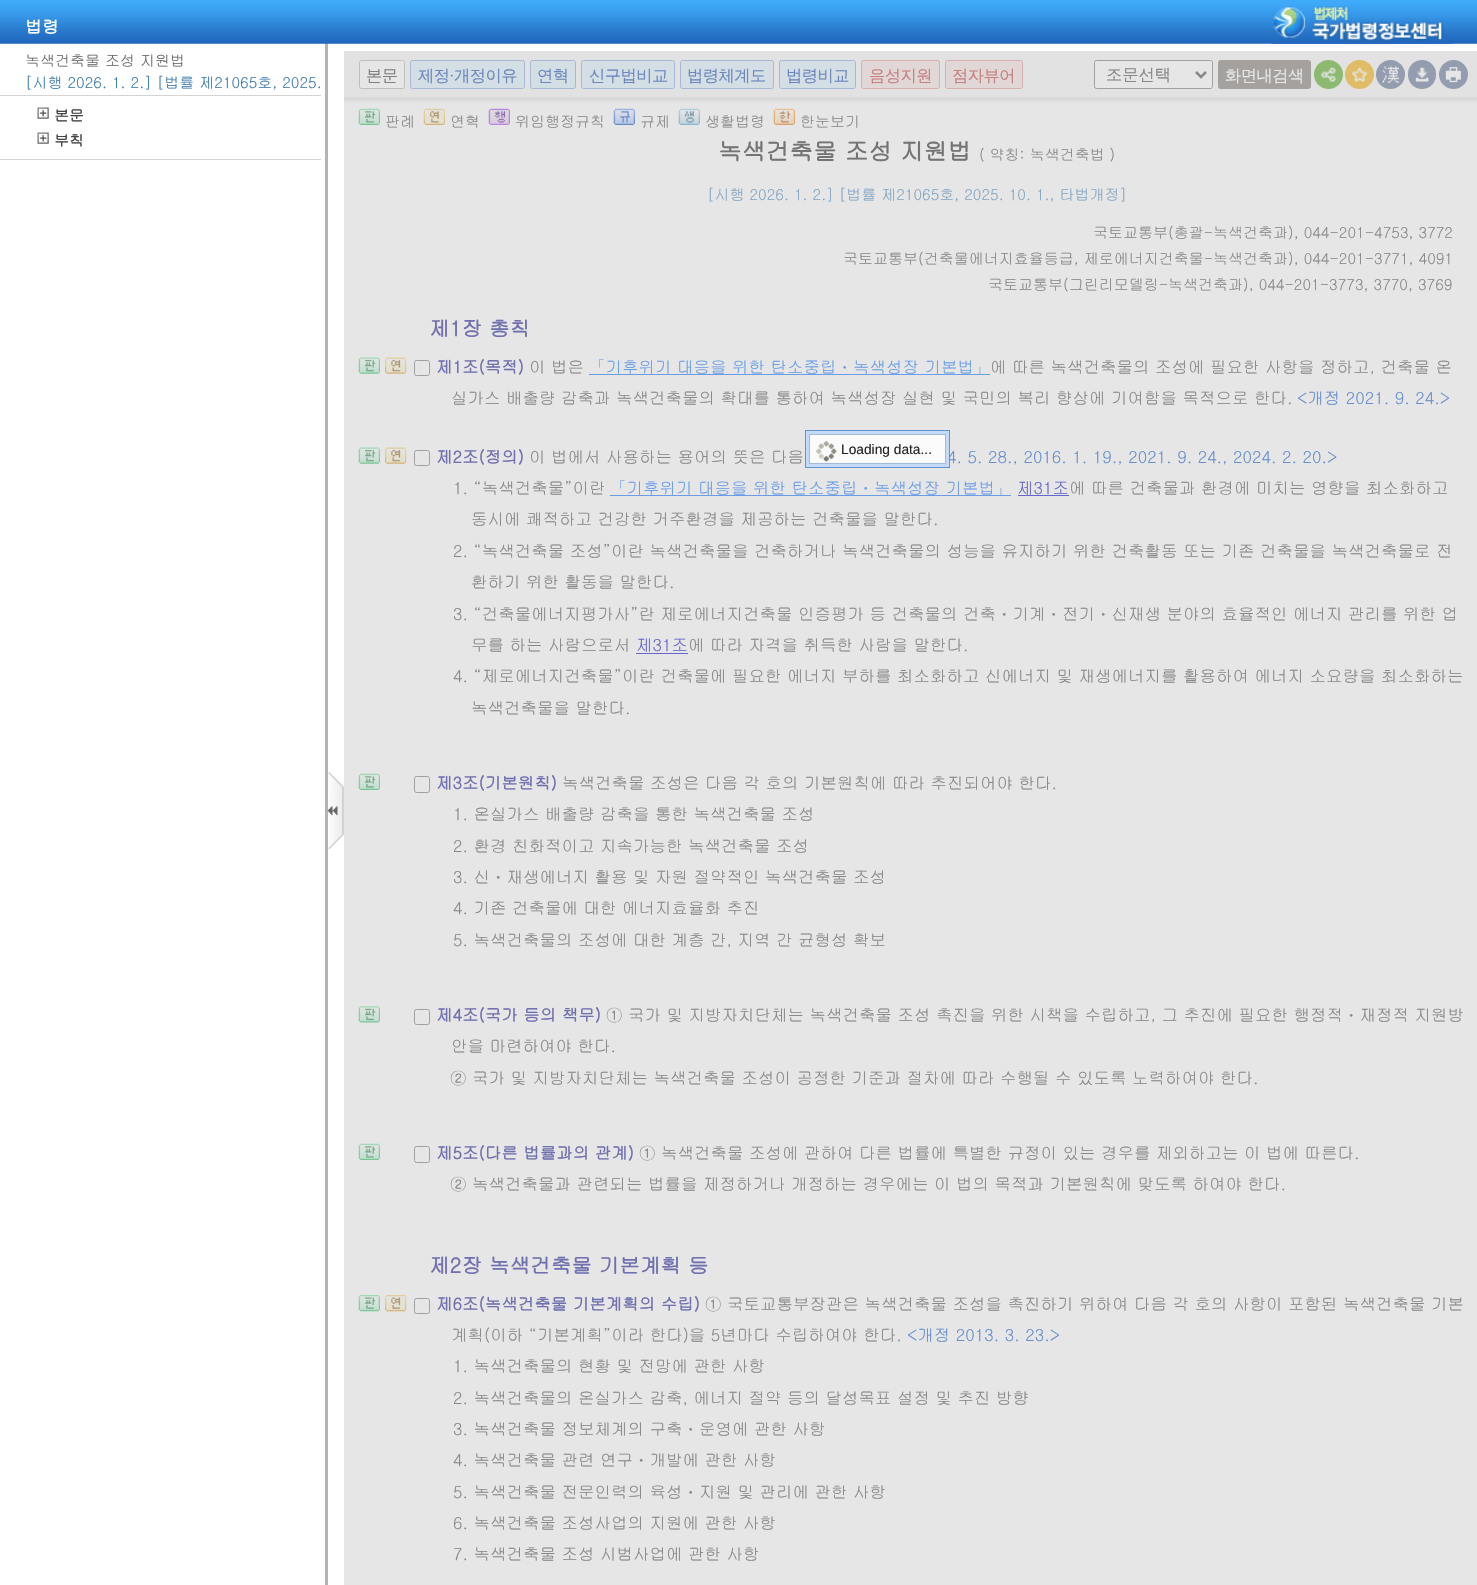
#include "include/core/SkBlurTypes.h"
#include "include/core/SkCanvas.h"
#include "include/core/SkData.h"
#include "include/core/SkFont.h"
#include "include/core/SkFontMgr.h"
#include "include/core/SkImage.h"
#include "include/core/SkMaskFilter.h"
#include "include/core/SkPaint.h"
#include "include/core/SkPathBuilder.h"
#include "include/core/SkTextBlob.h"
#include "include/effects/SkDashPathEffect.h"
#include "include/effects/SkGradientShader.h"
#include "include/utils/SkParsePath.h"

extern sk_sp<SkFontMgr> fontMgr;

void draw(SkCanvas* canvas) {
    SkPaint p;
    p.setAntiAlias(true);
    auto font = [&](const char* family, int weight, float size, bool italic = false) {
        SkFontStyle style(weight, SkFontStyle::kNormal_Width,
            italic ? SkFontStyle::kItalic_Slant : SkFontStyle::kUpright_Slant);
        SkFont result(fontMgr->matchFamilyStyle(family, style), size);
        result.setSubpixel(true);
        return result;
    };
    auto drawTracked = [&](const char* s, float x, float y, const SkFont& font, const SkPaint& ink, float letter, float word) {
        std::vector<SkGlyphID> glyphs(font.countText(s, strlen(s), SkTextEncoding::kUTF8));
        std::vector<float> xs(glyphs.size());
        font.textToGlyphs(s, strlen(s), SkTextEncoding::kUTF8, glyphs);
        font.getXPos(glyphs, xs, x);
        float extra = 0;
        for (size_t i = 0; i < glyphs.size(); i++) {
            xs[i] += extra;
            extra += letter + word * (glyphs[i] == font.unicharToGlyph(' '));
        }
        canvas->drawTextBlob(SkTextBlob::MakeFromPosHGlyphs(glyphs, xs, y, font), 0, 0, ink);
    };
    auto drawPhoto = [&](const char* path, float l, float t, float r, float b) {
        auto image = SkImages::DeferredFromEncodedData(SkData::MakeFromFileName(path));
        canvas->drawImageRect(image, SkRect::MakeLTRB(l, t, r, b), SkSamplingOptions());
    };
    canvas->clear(0xFFFFFFFF);
    p.setColor(0xFFE6E6E6);
    canvas->drawRect(SkRect::MakeLTRB(344, 103, 1477, 1585), p);
    p.setColor(0xFFB4B4B4);
    canvas->drawRect(SkRect::MakeLTRB(325, 43, 328, 1585), p);
    drawPhoto("media/1.png", 0, 0, 1477, 44);
    auto font1 = font("Gulim", 700, 17);
    p.setColor(0xFFFFFFFF);
    canvas->drawString("법령", 25, 33, font1, p);
    drawPhoto("media/2.png", 1271, 6, 1453, 44);
    p.setColor(0xFFD4D4D4);
    canvas->drawRect(SkRect::MakeLTRB(0, 159, 321, 160), p);
    auto font2 = font("Gulim", 400, 15);
    p.setColor(0xFF666666);
    canvas->drawString("녹색건축물 조성 지원법", 25, 66, font2, p);
    p.setColor(0xFF3C7AAC);
    canvas->drawString("[시행 2026. 1. 2.] [법률 제21065호, 2025.", 25, 88, font2, p);
    p.setColor(0xFFD4D4D4);
    canvas->drawRect(SkRect::MakeLTRB(0, 95, 321, 96), p);
    drawPhoto("media/3.png", 37, 107, 49, 119);
    auto font3 = font("Gulim", 700, 15);
    p.setColor(0xFF444444);
    canvas->drawString("본문", 54, 121, font3, p);
    drawPhoto("media/3.png", 37, 132, 49, 144);
    canvas->drawString("부칙", 54, 146, font3, p);
    p.setColor(0xFFE2E2E2);
    canvas->drawRect(SkRect::MakeLTRB(344, 51, 1477, 103), p);
    drawPhoto("media/4.png", 344, 97, 1477, 101);
    p.setColor(0xFFE6E6E6);
    canvas->drawRoundRect(SkRect::MakeLTRB(359.5f, 60.5f, 404.5f, 88.5f), 2, 2, p);
    p.setStyle(SkPaint::kStroke_Style);
    p.setStrokeWidth(1);
    p.setColor(0xFFBEBEBE);
    canvas->drawRoundRect(SkRect::MakeLTRB(359.5f, 60.5f, 404.5f, 88.5f), 2, 2, p);
    auto font4 = font("WenQuanYi Zen Hei", 500, 16.25f);
    p.setStyle(SkPaint::kFill_Style);
    p.setColor(0xFF808080);
    drawTracked("본문", 366, 81, font4, p, -0.5f, 0);
    p.setColor(0xFFD3DEE5);
    canvas->drawRoundRect(SkRect::MakeLTRB(410.5f, 60.5f, 524.5f, 88.5f), 2, 2, p);
    p.setStyle(SkPaint::kStroke_Style);
    p.setColor(0xFFA7B7D6);
    canvas->drawRoundRect(SkRect::MakeLTRB(410.5f, 60.5f, 524.5f, 88.5f), 2, 2, p);
    p.setStyle(SkPaint::kFill_Style);
    p.setColor(0xFF6D87BC);
    drawTracked("제정", 418, 81, font4, p, -0.5f, 0);
    auto font5 = font("Liberation Serif", 400, 16.25f);
    drawTracked("·", 449, 81, font5, p, -0.5f, 0);
    drawTracked("개정이유", 454, 81, font4, p, -0.5f, 0);
    p.setColor(0xFFD3DEE5);
    canvas->drawRoundRect(SkRect::MakeLTRB(530.5f, 60.5f, 575.5f, 88.5f), 2, 2, p);
    p.setStyle(SkPaint::kStroke_Style);
    p.setColor(0xFFA7B7D6);
    canvas->drawRoundRect(SkRect::MakeLTRB(530.5f, 60.5f, 575.5f, 88.5f), 2, 2, p);
    p.setStyle(SkPaint::kFill_Style);
    p.setColor(0xFF6D87BC);
    drawTracked("연혁", 537, 81, font4, p, -0.5f, 0);
    p.setColor(0xFFD3DEE5);
    canvas->drawRoundRect(SkRect::MakeLTRB(581.5f, 60.5f, 674.5f, 88.5f), 2, 2, p);
    p.setStyle(SkPaint::kStroke_Style);
    p.setColor(0xFFA7B7D6);
    canvas->drawRoundRect(SkRect::MakeLTRB(581.5f, 60.5f, 674.5f, 88.5f), 2, 2, p);
    p.setStyle(SkPaint::kFill_Style);
    p.setColor(0xFF6D87BC);
    drawTracked("신구법비교", 589, 81, font4, p, -0.5f, 0);
    p.setColor(0xFFD3DEE5);
    canvas->drawRoundRect(SkRect::MakeLTRB(680.5f, 60.5f, 773.5f, 88.5f), 2, 2, p);
    p.setStyle(SkPaint::kStroke_Style);
    p.setColor(0xFFA7B7D6);
    canvas->drawRoundRect(SkRect::MakeLTRB(680.5f, 60.5f, 773.5f, 88.5f), 2, 2, p);
    p.setStyle(SkPaint::kFill_Style);
    p.setColor(0xFF6D87BC);
    drawTracked("법령체계도", 687, 81, font4, p, -0.5f, 0);
    p.setColor(0xFFD3DEE5);
    canvas->drawRoundRect(SkRect::MakeLTRB(779.5f, 60.5f, 855.5f, 88.5f), 2, 2, p);
    p.setStyle(SkPaint::kStroke_Style);
    p.setColor(0xFFA7B7D6);
    canvas->drawRoundRect(SkRect::MakeLTRB(779.5f, 60.5f, 855.5f, 88.5f), 2, 2, p);
    p.setStyle(SkPaint::kFill_Style);
    p.setColor(0xFF6D87BC);
    drawTracked("법령비교", 786, 81, font4, p, -0.5f, 0);
    p.setColor(0xFFE2D7D7);
    canvas->drawRoundRect(SkRect::MakeLTRB(861.5f, 60.5f, 939.5f, 88.5f), 2, 2, p);
    p.setStyle(SkPaint::kStroke_Style);
    p.setColor(0xFFD7ADAD);
    canvas->drawRoundRect(SkRect::MakeLTRB(861.5f, 60.5f, 939.5f, 88.5f), 2, 2, p);
    p.setStyle(SkPaint::kFill_Style);
    p.setColor(0xFFC78181);
    drawTracked("음성지원", 869, 81, font4, p, -0.5f, 0);
    p.setColor(0xFFE2D7D7);
    canvas->drawRoundRect(SkRect::MakeLTRB(945.5f, 60.5f, 1022.5f, 88.5f), 2, 2, p);
    p.setStyle(SkPaint::kStroke_Style);
    p.setColor(0xFFD7ADAD);
    canvas->drawRoundRect(SkRect::MakeLTRB(945.5f, 60.5f, 1022.5f, 88.5f), 2, 2, p);
    p.setStyle(SkPaint::kFill_Style);
    p.setColor(0xFFC78181);
    drawTracked("점자뷰어", 952, 81, font4, p, -0.5f, 0);
    p.setColor(0xFFE6E6E6);
    canvas->drawRoundRect(SkRect::MakeLTRB(1094.5f, 60.5f, 1212.5f, 88.5f), 2, 2, p);
    p.setStyle(SkPaint::kStroke_Style);
    p.setColor(0xFFA1A1A1);
    canvas->drawRoundRect(SkRect::MakeLTRB(1094.5f, 60.5f, 1212.5f, 88.5f), 2, 2, p);
    p.setStrokeWidth(2.5f);
    p.setColor(0xFF888888);
    canvas->drawPath(SkPathBuilder().moveTo(1196, 72).lineTo(1201, 77).lineTo(1206, 72).detach(), p);
    p.setStyle(SkPaint::kFill_Style);
    canvas->drawString("조문선택", 1106, 80, font4, p);
    p.setColor(0xFFA4A19F);
    canvas->drawRoundRect(SkRect::MakeLTRB(1218.5f, 60.5f, 1310.5f, 88.5f), 2, 2, p);
    p.setStyle(SkPaint::kStroke_Style);
    p.setStrokeWidth(1);
    canvas->drawRoundRect(SkRect::MakeLTRB(1218.5f, 60.5f, 1310.5f, 88.5f), 2, 2, p);
    p.setStyle(SkPaint::kFill_Style);
    p.setColor(0xFFE6E6E6);
    drawTracked("화면내검색", 1225, 81, font4, p, -0.5f, 0);
    p.setColor(0xFF8DBA70);
    canvas->drawCircle(1328.5f, 74.5f, 14.5f, p);
    drawPhoto("media/5.png", 1320, 67, 1336, 82);
    p.setColor(0xFFE0BC66);
    canvas->drawCircle(1359.5f, 74.5f, 14.5f, p);
    drawPhoto("media/6.png", 1352, 67, 1368, 82);
    p.setColor(0xFF949DB0);
    canvas->drawCircle(1390.5f, 74.5f, 14.5f, p);
    drawPhoto("media/7.png", 1382, 66, 1399, 83);
    canvas->drawRoundRect(SkRect::MakeLTRB(1408, 60, 1436, 89), 14, 14, p);
    drawPhoto("media/8.png", 1415, 67, 1429, 82);
    canvas->drawCircle(1453.5f, 74.5f, 14.5f, p);
    drawPhoto("media/9.png", 1445, 67, 1461, 83);
    drawPhoto("media/10.png", 358, 108, 380, 125);
    p.setColor(0xFF888888);
    canvas->drawString("판례", 385, 127, font2, p);
    drawPhoto("media/11.png", 423, 108, 445, 125);
    canvas->drawString("연혁", 450, 127, font2, p);
    drawPhoto("media/12.png", 488, 108, 510, 125);
    canvas->drawString("위임행정규칙", 515, 127, font2, p);
    drawPhoto("media/13.png", 613, 108, 635, 125);
    canvas->drawString("규제", 640, 127, font2, p);
    drawPhoto("media/14.png", 678, 108, 700, 125);
    canvas->drawString("생활법령", 705, 127, font2, p);
    drawPhoto("media/15.png", 773, 108, 795, 125);
    canvas->drawString("한눈보기", 800, 127, font2, p);
    auto font6 = font("Gulim", 700, 23.75f);
    p.setColor(0xFF747474);
    canvas->drawString("녹색건축물 조성 지원법", 718, 160, font6, p);
    p.setColor(0xFF888888);
    canvas->drawString("( 약칭: 녹색건축법 )", 979, 160, font2, p);
    p.setColor(0xFF84A6C4);
    canvas->drawString("[시행 2026. 1. 2.] [법률 제21065호, 2025. 10. 1., 타법개정]", 707, 200, font2, p);
    p.setColor(0xFF888888);
    {
        const struct { const char* s; float x, y; } items[] = {
            {"국토교통부(총괄-녹색건축과), 044-201-4753, 3772", 1093, 238},
            {"국토교통부(건축물에너지효율등급, 제로에너지건축물-녹색건축과), 044-201-3771, 4091", 843, 264},
            {"국토교통부(그린리모델링-녹색건축과), 044-201-3773, 3770, 3769", 988, 290},
        };
        for (auto [s, x, y] : items) {
            canvas->drawString(s, x, y, font2, p);
        }
    }
    auto font7 = font("Gulim", 700, 20.6f);
    p.setColor(0xFF7171B0);
    canvas->drawString("제1장 총칙", 429, 336, font7, p);
    drawPhoto("media/16.png", 358, 357, 380, 374);
    drawPhoto("media/17.png", 385, 357, 407, 374);
    p.setStyle(SkPaint::kStroke_Style);
    p.setColor(0xFFA1A1A1);
    canvas->drawRoundRect(SkRect::MakeLTRB(414.5f, 360.5f, 429.5f, 375.5f), 2, 2, p);
    auto font8 = font("Gulim", 700, 16.5f);
    p.setStyle(SkPaint::kFill_Style);
    p.setColor(0xFF7171B0);
    canvas->drawString("제1조(목적)", 436, 373, font8, p);
    auto font9 = font("Gulim", 400, 16.5f);
    p.setColor(0xFF888888);
    canvas->drawString("이 법은", 529, 373, font9, p);
    p.setColor(0xFF6A9DE6);
    canvas->drawRect(SkRect::MakeLTRB(589, 374, 990, 375), p);
    canvas->drawString("「기후위기 대응을 위한 탄소중립ㆍ녹색성장 기본법」", 589, 373, font9, p);
    p.setColor(0xFF888888);
    canvas->drawString("에 따른 녹색건축물의 조성에 필요한 사항을 정하고, 건축물 온", 990, 373, font9, p);
    canvas->drawString("실가스 배출량 감축과 녹색건축물의 확대를 통하여 녹색성장 실현 및 국민의 복리 향상에 기여함을 목적으로 한다.", 451, 404, font9, p);
    p.setColor(0xFF678ECD);
    canvas->drawString("<개정 2021. 9. 24.>", 1297, 404, font9, p);
    drawPhoto("media/16.png", 358, 447, 380, 464);
    drawPhoto("media/17.png", 385, 447, 407, 464);
    p.setStyle(SkPaint::kStroke_Style);
    p.setColor(0xFFA1A1A1);
    canvas->drawRoundRect(SkRect::MakeLTRB(414.5f, 450.5f, 429.5f, 465.5f), 2, 2, p);
    p.setStyle(SkPaint::kFill_Style);
    p.setColor(0xFF7171B0);
    canvas->drawString("제2조(정의)", 436, 463, font8, p);
    p.setColor(0xFF888888);
    canvas->drawString("이 법에서 사용하는 용어의 뜻은 다음", 529, 463, font9, p);
    p.setColor(0xFF678ECD);
    canvas->drawString("4. 5. 28., 2016. 1. 19., 2021. 9. 24., 2024. 2. 20.>", 947, 463, font9, p);
    p.setColor(0xFF888888);
    canvas->drawString("1. “녹색건축물”이란", 453, 494, font9, p);
    p.setColor(0xFF6A9DE6);
    canvas->drawRect(SkRect::MakeLTRB(610, 495, 1011, 496), p);
    canvas->drawString("「기후위기 대응을 위한 탄소중립ㆍ녹색성장 기본법」", 610, 494, font9, p);
    p.setColor(0xFF6666CD);
    canvas->drawString("제31조", 1017, 494, font9, p);
    canvas->drawRect(SkRect::MakeLTRB(1018, 495, 1069, 496), p);
    p.setColor(0xFF888888);
    {
        const struct { const char* s; float x, y; } items[] = {
            {"에 따른 건축물과 환경에 미치는 영향을 최소화하고", 1069, 494},
            {"동시에 쾌적하고 건강한 거주환경을 제공하는 건축물을 말한다.", 471, 525},
            {"2. “녹색건축물 조성”이란 녹색건축물을 건축하거나 녹색건축물의 성능을 유지하기 위한 건축활동 또는 기존 건축물을 녹색건축물로 전", 453, 557},
            {"환하기 위한 활동을 말한다.", 471, 588},
            {"3. “건축물에너지평가사”란 제로에너지건축물 인증평가 등 건축물의 건축ㆍ기계ㆍ전기ㆍ신재생 분야의 효율적인 에너지 관리를 위한 업", 453, 620},
            {"무를 하는 사람으로서", 471, 651},
        };
        for (auto [s, x, y] : items) {
            canvas->drawString(s, x, y, font9, p);
        }
    }
    p.setColor(0xFF6666CD);
    canvas->drawString("제31조", 636, 651, font9, p);
    canvas->drawRect(SkRect::MakeLTRB(636, 653, 688, 654), p);
    p.setColor(0xFF888888);
    {
        const struct { const char* s; float x, y; } items[] = {
            {"에 따라 자격을 취득한 사람을 말한다.", 688, 651},
            {"4. “제로에너지건축물”이란 건축물에 필요한 에너지 부하를 최소화하고 신에너지 및 재생에너지를 활용하여 에너지 소요량을 최소화하는", 453, 682},
            {"녹색건축물을 말한다.", 471, 714},
        };
        for (auto [s, x, y] : items) {
            canvas->drawString(s, x, y, font9, p);
        }
    }
    drawPhoto("media/18.png", 358, 773, 380, 790);
    p.setStyle(SkPaint::kStroke_Style);
    p.setColor(0xFFA1A1A1);
    canvas->drawRoundRect(SkRect::MakeLTRB(414.5f, 776.5f, 429.5f, 792.5f), 2, 2, p);
    p.setStyle(SkPaint::kFill_Style);
    p.setColor(0xFF7171B0);
    canvas->drawString("제3조(기본원칙)", 436, 789, font8, p);
    p.setColor(0xFF888888);
    {
        const struct { const char* s; float x, y; } items[] = {
            {"녹색건축물 조성은 다음 각 호의 기본원칙에 따라 추진되어야 한다.", 562, 789},
            {"1. 온실가스 배출량 감축을 통한 녹색건축물 조성", 453, 820},
            {"2. 환경 친화적이고 지속가능한 녹색건축물 조성", 453, 852},
            {"3. 신ㆍ재생에너지 활용 및 자원 절약적인 녹색건축물 조성", 453, 883},
            {"4. 기존 건축물에 대한 에너지효율화 추진", 453, 914},
            {"5. 녹색건축물의 조성에 대한 계층 간, 지역 간 균형성 확보", 453, 946},
        };
        for (auto [s, x, y] : items) {
            canvas->drawString(s, x, y, font9, p);
        }
    }
    drawPhoto("media/19.png", 358, 1006, 380, 1023);
    p.setStyle(SkPaint::kStroke_Style);
    p.setColor(0xFFA1A1A1);
    canvas->drawRoundRect(SkRect::MakeLTRB(414.5f, 1009.5f, 429.5f, 1024.5f), 2, 2, p);
    p.setStyle(SkPaint::kFill_Style);
    p.setColor(0xFF7171B0);
    canvas->drawString("제4조(국가 등의 책무)", 436, 1021, font8, p);
    p.setColor(0xFF888888);
    {
        const struct { const char* s; float x, y; } items[] = {
            {"① 국가 및 지방자치단체는 녹색건축물 조성 촉진을 위한 시책을 수립하고, 그 추진에 필요한 행정적ㆍ재정적 지원방", 606, 1021},
            {"안을 마련하여야 한다.", 451, 1052},
            {"② 국가 및 지방자치단체는 녹색건축물 조성이 공정한 기준과 절차에 따라 수행될 수 있도록 노력하여야 한다.", 450, 1084},
        };
        for (auto [s, x, y] : items) {
            canvas->drawString(s, x, y, font9, p);
        }
    }
    drawPhoto("media/10.png", 358, 1143, 380, 1160);
    p.setStyle(SkPaint::kStroke_Style);
    p.setColor(0xFFA1A1A1);
    canvas->drawRoundRect(SkRect::MakeLTRB(414.5f, 1146.5f, 429.5f, 1162.5f), 2, 2, p);
    p.setStyle(SkPaint::kFill_Style);
    p.setColor(0xFF7171B0);
    canvas->drawString("제5조(다른 법률과의 관계)", 436, 1159, font8, p);
    p.setColor(0xFF888888);
    canvas->drawString("① 녹색건축물 조성에 관하여 다른 법률에 특별한 규정이 있는 경우를 제외하고는 이 법에 따른다.", 639, 1159, font9, p);
    canvas->drawString("② 녹색건축물과 관련되는 법률을 제정하거나 개정하는 경우에는 이 법의 목적과 기본원칙에 맞도록 하여야 한다.", 450, 1190, font9, p);
    p.setColor(0xFF7171B0);
    canvas->drawString("제2장 녹색건축물 기본계획 등", 429, 1273, font7, p);
    drawPhoto("media/20.png", 358, 1295, 380, 1312);
    drawPhoto("media/21.png", 385, 1295, 407, 1312);
    p.setStyle(SkPaint::kStroke_Style);
    p.setColor(0xFFA1A1A1);
    canvas->drawRoundRect(SkRect::MakeLTRB(414.5f, 1298.5f, 429.5f, 1313.5f), 2, 2, p);
    p.setStyle(SkPaint::kFill_Style);
    p.setColor(0xFF7171B0);
    canvas->drawString("제6조(녹색건축물 기본계획의 수립)", 436, 1310, font8, p);
    p.setColor(0xFF888888);
    canvas->drawString("① 국토교통부장관은 녹색건축물 조성을 촉진하기 위하여 다음 각 호의 사항이 포함된 녹색건축물 기본", 705, 1310, font9, p);
    canvas->drawString("계획(이하 “기본계획”이라 한다)을 5년마다 수립하여야 한다.", 451, 1341, font9, p);
    p.setColor(0xFF678ECD);
    canvas->drawString("<개정 2013. 3. 23.>", 907, 1341, font9, p);
    p.setColor(0xFF888888);
    {
        const struct { const char* s; float x, y; } items[] = {
            {"1. 녹색건축물의 현황 및 전망에 관한 사항", 453, 1372},
            {"2. 녹색건축물의 온실가스 감축, 에너지 절약 등의 달성목표 설정 및 추진 방향", 453, 1404},
            {"3. 녹색건축물 정보체계의 구축ㆍ운영에 관한 사항", 453, 1435},
            {"4. 녹색건축물 관련 연구ㆍ개발에 관한 사항", 453, 1466},
            {"5. 녹색건축물 전문인력의 육성ㆍ지원 및 관리에 관한 사항", 453, 1498},
            {"6. 녹색건축물 조성사업의 지원에 관한 사항", 453, 1529},
            {"7. 녹색건축물 조성 시범사업에 관한 사항", 453, 1560},
        };
        for (auto [s, x, y] : items) {
            canvas->drawString(s, x, y, font9, p);
        }
    }
    p.setColor(0xFFC3DAF9);
    canvas->drawRect(SkRect::MakeLTRB(805.5f, 430.5f, 949.5f, 467.5f), p);
    p.setStyle(SkPaint::kStroke_Style);
    p.setColor(0xFF6593CF);
    canvas->drawRect(SkRect::MakeLTRB(805.5f, 430.5f, 949.5f, 467.5f), p);
    p.setStyle(SkPaint::kFill_Style);
    p.setColor(0xFFFBFBFB);
    canvas->drawRect(SkRect::MakeLTRB(810, 435, 945, 463), p);
    drawPhoto("media/22.png", 816, 441, 837, 462);
    p.setStyle(SkPaint::kStroke_Style);
    p.setColor(0xFFA3BAD9);
    canvas->drawRect(SkRect::MakeLTRB(809.5f, 434.5f, 945.5f, 463.5f), p);
    auto font10 = font("Liberation Sans", 400, 13.75f);
    p.setStyle(SkPaint::kFill_Style);
    p.setColor(0xFF222222);
    canvas->drawString("Loading data...", 841, 454, font10, p);
    drawPhoto("media/23.png", 327, 772, 344, 849);
}
